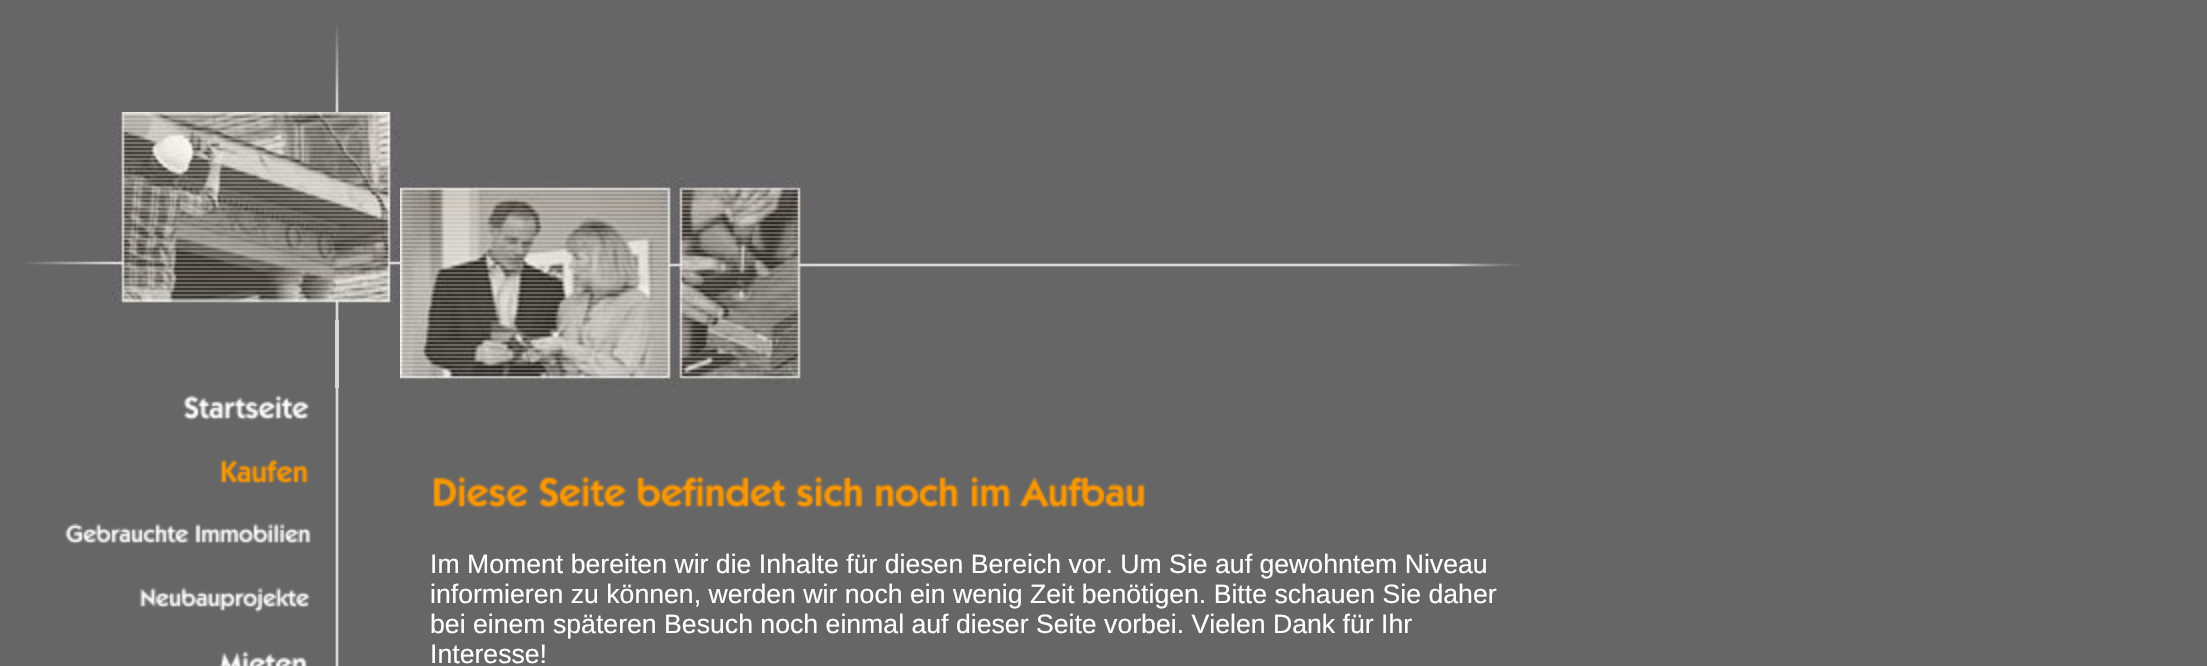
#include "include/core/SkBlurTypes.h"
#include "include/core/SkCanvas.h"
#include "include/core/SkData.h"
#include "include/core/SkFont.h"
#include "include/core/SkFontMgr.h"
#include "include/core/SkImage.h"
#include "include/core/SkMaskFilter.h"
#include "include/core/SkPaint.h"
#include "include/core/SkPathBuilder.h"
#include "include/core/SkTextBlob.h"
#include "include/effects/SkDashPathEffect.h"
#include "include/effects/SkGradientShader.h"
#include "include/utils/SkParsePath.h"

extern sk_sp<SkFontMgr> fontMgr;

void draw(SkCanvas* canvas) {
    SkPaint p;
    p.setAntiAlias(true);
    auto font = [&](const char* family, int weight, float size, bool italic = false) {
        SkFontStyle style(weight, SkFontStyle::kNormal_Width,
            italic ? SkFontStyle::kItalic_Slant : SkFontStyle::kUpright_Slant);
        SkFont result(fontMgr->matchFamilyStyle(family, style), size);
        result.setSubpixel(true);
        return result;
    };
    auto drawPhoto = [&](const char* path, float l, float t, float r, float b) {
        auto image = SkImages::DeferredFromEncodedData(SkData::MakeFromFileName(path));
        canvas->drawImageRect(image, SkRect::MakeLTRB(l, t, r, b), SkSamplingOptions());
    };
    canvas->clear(0xFF666666);
    drawPhoto("media/1.png", 335, 24, 339, 112);
    drawPhoto("media/2.png", 25, 261, 112, 265);
    drawPhoto("media/3.png", 112, 112, 400, 320);
    p.setColor(0xFFD8D8D8);
    canvas->drawRect(SkRect::MakeLTRB(335, 320, 339, 388), p);
    drawPhoto("media/4.png", 400, 178, 816, 386);
    drawPhoto("media/5.png", 816, 263, 1522, 267);
    drawPhoto("media/6.png", 183, 388, 339, 452);
    drawPhoto("media/7.png", 219, 452, 339, 516);
    drawPhoto("media/8.png", 65, 516, 339, 580);
    drawPhoto("media/9.png", 139, 580, 339, 644);
    drawPhoto("media/10.png", 219, 644, 339, 666);
    drawPhoto("media/11.png", 433, 475, 1145, 509);
    auto font1 = font("Liberation Sans", 400, 26.65f);
    p.setColor(0xFFFFFFFF);
    {
        const struct { const char* s; float x, y; } items[] = {
            {"Im Moment bereiten wir die Inhalte für diesen Bereich vor. Um Sie auf gewohntem Niveau", 430, 573},
            {"informieren zu können, werden wir noch ein wenig Zeit benötigen. Bitte schauen Sie daher", 430, 603},
            {"bei einem späteren Besuch noch einmal auf dieser Seite vorbei. Vielen Dank für Ihr", 430, 633},
            {"Interesse!", 430, 663},
        };
        for (auto [s, x, y] : items) {
            canvas->drawString(s, x, y, font1, p);
        }
    }
}
